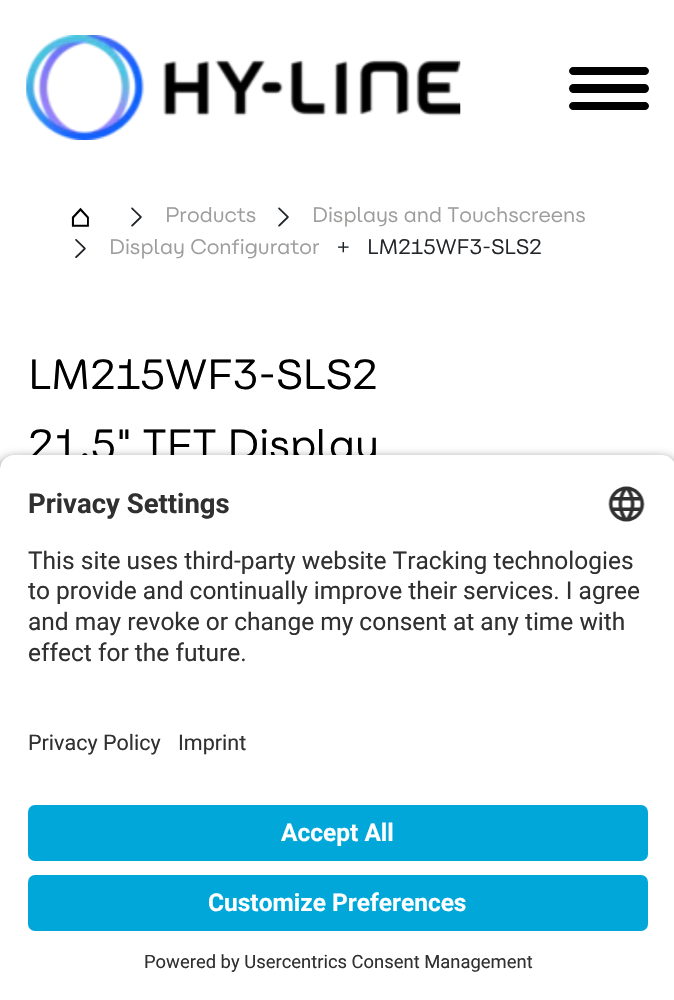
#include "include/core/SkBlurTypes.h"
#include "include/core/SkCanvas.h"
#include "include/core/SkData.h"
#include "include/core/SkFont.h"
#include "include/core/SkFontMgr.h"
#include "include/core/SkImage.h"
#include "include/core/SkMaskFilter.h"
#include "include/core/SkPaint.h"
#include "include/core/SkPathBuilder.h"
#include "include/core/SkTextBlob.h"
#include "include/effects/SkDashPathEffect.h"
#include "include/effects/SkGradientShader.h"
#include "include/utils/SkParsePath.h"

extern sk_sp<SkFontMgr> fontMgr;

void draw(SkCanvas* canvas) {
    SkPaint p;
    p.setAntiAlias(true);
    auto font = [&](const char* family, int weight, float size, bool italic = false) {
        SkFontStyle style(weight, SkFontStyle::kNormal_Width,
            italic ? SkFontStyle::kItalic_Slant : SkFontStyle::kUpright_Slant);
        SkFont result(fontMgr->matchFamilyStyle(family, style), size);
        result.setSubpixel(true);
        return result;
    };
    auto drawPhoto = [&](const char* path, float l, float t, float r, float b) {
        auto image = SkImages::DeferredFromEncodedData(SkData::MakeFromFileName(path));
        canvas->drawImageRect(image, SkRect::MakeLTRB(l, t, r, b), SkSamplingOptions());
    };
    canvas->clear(0xFFFFFFFF);
    drawPhoto("media/1.png", 26, 35, 461, 140);
    p.setColor(0xFF000000);
    canvas->drawPath(SkPathBuilder().moveTo(573, 67).lineTo(609, 67).lineTo(609, 75).lineTo(573, 75).cubicTo(571, 75, 569, 73, 569, 71).cubicTo(569, 69, 571, 67, 573, 67).close().detach(), p);
    canvas->drawPath(SkPathBuilder().moveTo(609, 67).lineTo(645, 67).cubicTo(647, 67, 649, 69, 649, 71).cubicTo(649, 73, 647, 75, 645, 75).lineTo(609, 75).close().detach(), p);
    canvas->drawPath(SkPathBuilder().moveTo(573.5f, 84).lineTo(609, 84).lineTo(609, 93).lineTo(573.5f, 93).cubicTo(571, 93, 569, 91, 569, 88.5f).cubicTo(569, 86, 571, 84, 573.5f, 84).close().detach(), p);
    canvas->drawPath(SkPathBuilder().moveTo(609, 84).lineTo(644.5f, 84).cubicTo(647, 84, 649, 86, 649, 88.5f).cubicTo(649, 91, 647, 93, 644.5f, 93).lineTo(609, 93).close().detach(), p);
    canvas->drawPath(SkPathBuilder().moveTo(573, 102).lineTo(609, 102).lineTo(609, 110).lineTo(573, 110).cubicTo(571, 110, 569, 108, 569, 106).cubicTo(569, 104, 571, 102, 573, 102).close().detach(), p);
    canvas->drawPath(SkPathBuilder().moveTo(609, 102).lineTo(645, 102).cubicTo(647, 102, 649, 104, 649, 106).cubicTo(649, 108, 647, 110, 645, 110).lineTo(609, 110).close().detach(), p);
    drawPhoto("media/2.png", 71, 207, 89, 227);
    drawPhoto("media/3.png", 131, 207, 142, 227);
    auto font1 = font("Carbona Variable", 400, 21);
    p.setColor(0xFF9D9D9C);
    canvas->drawString("Products", 165, 222, font1, p);
    drawPhoto("media/3.png", 278, 207, 289, 227);
    canvas->drawString("Displays and Touchscreens", 312, 222, font1, p);
    drawPhoto("media/4.png", 75, 239, 86, 258);
    canvas->drawString("Display Configurator", 109, 254, font1, p);
    p.setColor(0xFF212529);
    canvas->drawString("+", 337, 254, font1, p);
    canvas->drawString("LM215WF3-SLS2", 367, 254, font1, p);
    auto font2 = font("Carbona Variable", 400, 42);
    p.setColor(0xFF000000);
    canvas->drawString("LM215WF3-SLS2", 28, 389, font2, p);
    canvas->drawString("21,5\" TFT Display", 28, 459, font2, p);
    p.setColor(0xCC000000);
    p.setMaskFilter(SkMaskFilter::MakeBlur(kNormal_SkBlurStyle, 6));
    canvas->drawRoundRect(SkRect::MakeLTRB(0, 460, 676, 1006), 14, 14, p);
    p.setMaskFilter(nullptr);
    p.setColor(0xFFFFFFFF);
    canvas->drawPath(SkPathBuilder().moveTo(14, 455).lineTo(662, 455).cubicTo(669.5f, 455, 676, 461.5f, 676, 469).lineTo(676, 704).lineTo(0, 704).lineTo(0, 469).cubicTo(0, 461.5f, 6.5f, 455, 14, 455).close().detach(), p);
    auto font3 = font("Roboto", 700, 27.5f);
    p.setColor(0xFF303030);
    canvas->drawString("Privacy Settings", 28, 513, font3, p);
    drawPhoto("media/5.png", 608, 486, 645, 522);
    auto font4 = font("Roboto", 400, 24.5f);
    {
        const struct { const char* s; float x, y; } items[] = {
            {"This site uses third-party website Tracking technologies", 28, 569},
            {"to provide and continually improve their services. I agree", 28, 599},
            {"and may revoke or change my consent at any time with", 28, 630},
            {"effect for the future.", 28, 661},
        };
        for (auto [s, x, y] : items) {
            canvas->drawString(s, x, y, font4, p);
        }
    }
    p.setColor(0xFFFFFFFF);
    canvas->drawRect(SkRect::MakeLTRB(0, 704, 674, 1000), p);
    auto font5 = font("Roboto", 400, 21.5f);
    p.setColor(0xFF303030);
    canvas->drawString("Privacy Policy", 28, 750, font5, p);
    canvas->drawString("Imprint", 178, 750, font5, p);
    p.setColor(0xFF00A7D8);
    canvas->drawRoundRect(SkRect::MakeLTRB(28, 805, 648, 861), 7, 7, p);
    auto font6 = font("Roboto", 700, 24.5f);
    p.setColor(0xFFFFFFFF);
    canvas->drawString("Accept All", 281, 841, font6, p);
    p.setColor(0xFF00A7D8);
    canvas->drawRoundRect(SkRect::MakeLTRB(28, 875, 648, 931), 7, 7, p);
    p.setColor(0xFFFFFFFF);
    canvas->drawString("Customize Preferences", 208, 911, font6, p);
    auto font7 = font("Roboto", 400, 18.4f);
    p.setColor(0xFF303030);
    canvas->drawString("Powered by Usercentrics Consent Management", 144, 968, font7, p);
}
